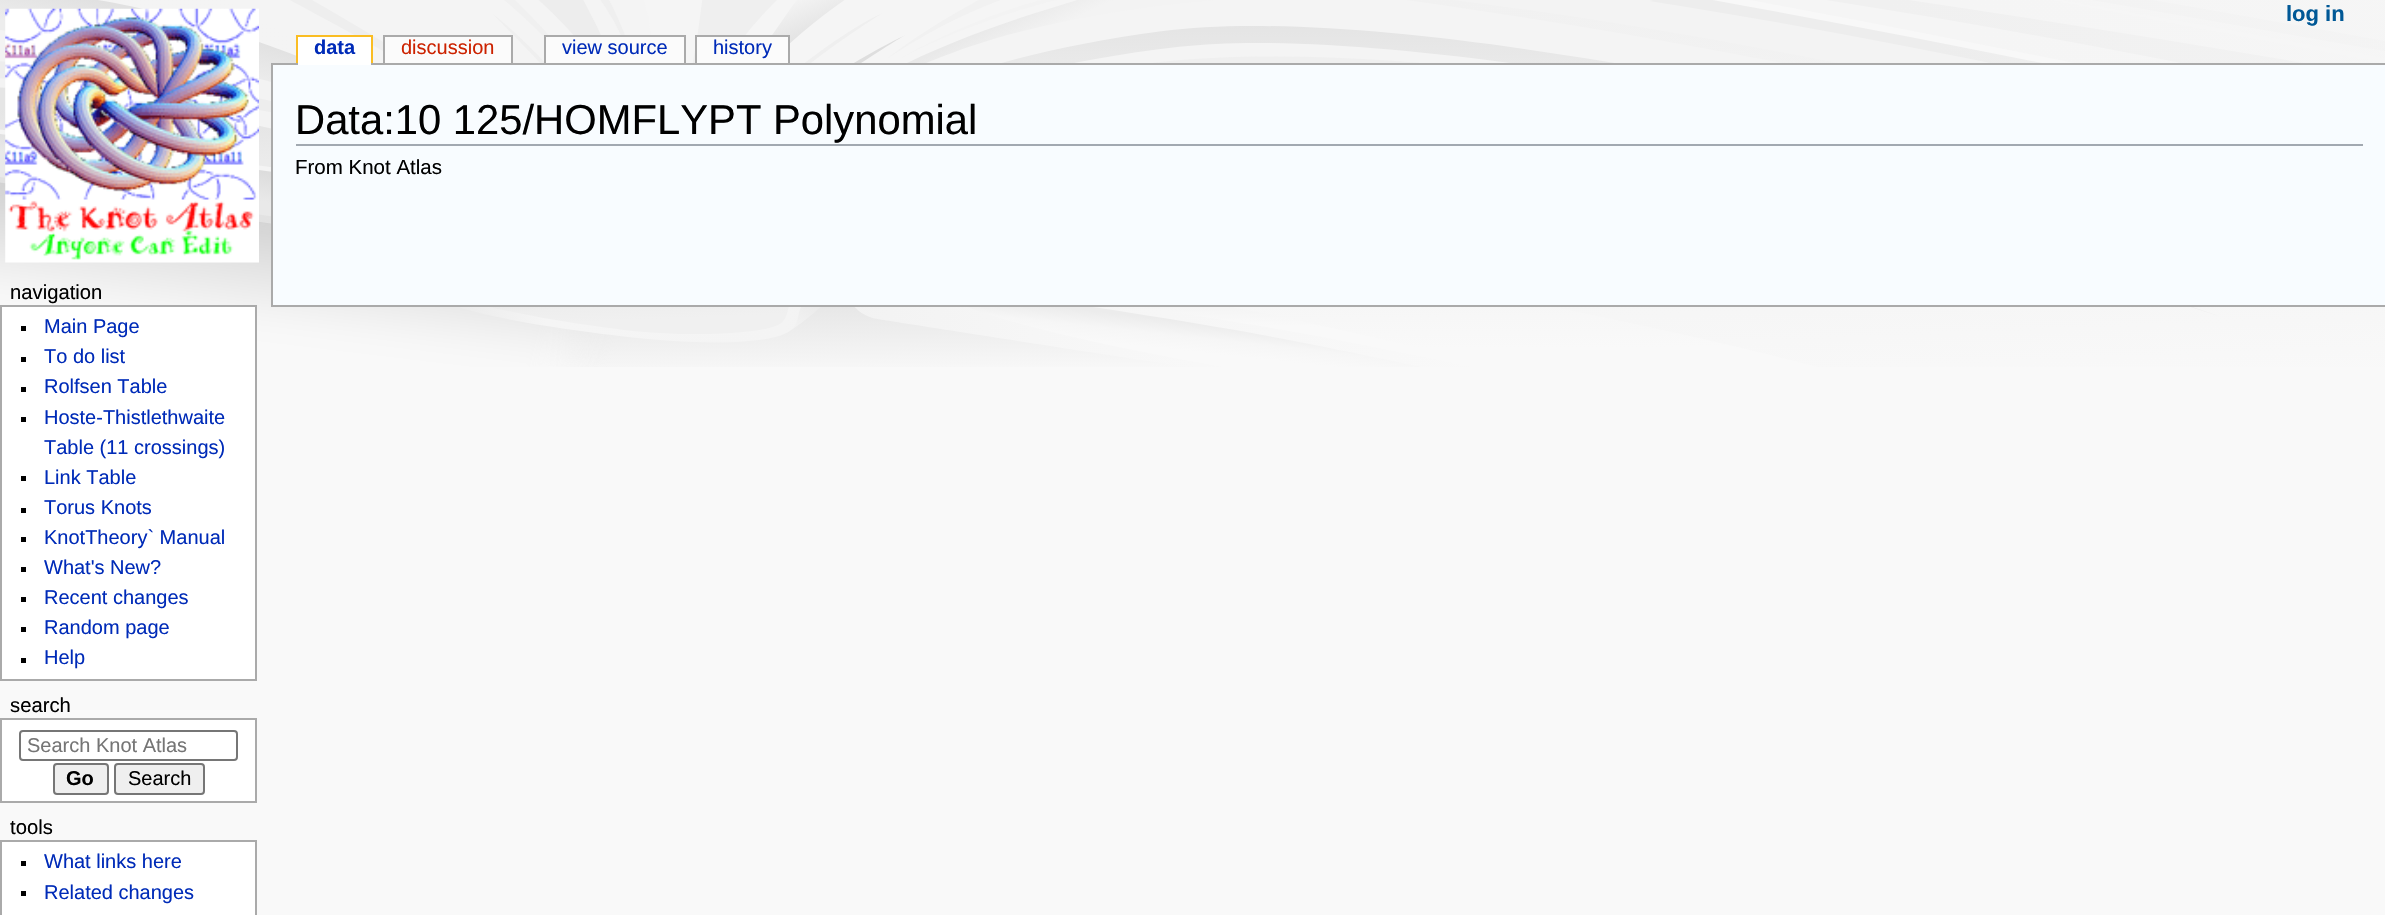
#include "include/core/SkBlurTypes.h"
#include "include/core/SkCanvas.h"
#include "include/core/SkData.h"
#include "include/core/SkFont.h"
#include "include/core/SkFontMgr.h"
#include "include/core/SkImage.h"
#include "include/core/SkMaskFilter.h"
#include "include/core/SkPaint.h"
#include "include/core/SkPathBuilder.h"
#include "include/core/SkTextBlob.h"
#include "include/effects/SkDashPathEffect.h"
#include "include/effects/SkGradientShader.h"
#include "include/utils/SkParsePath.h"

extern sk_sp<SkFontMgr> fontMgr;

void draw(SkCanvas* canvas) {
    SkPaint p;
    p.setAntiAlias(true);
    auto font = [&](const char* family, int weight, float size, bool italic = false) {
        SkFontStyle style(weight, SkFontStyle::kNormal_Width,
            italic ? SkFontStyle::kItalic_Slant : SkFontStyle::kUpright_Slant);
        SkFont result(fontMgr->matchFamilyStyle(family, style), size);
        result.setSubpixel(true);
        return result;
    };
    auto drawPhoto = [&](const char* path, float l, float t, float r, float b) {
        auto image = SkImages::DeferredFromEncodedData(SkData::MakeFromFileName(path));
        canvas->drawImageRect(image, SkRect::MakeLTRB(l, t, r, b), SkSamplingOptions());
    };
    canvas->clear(0xFFF9F9F9);
    drawPhoto("media/1.png", 0, 0, 2385, 367);
    drawPhoto("media/2.png", 5, 8, 259, 263);
    p.setColor(0xFFAAAAAA);
    canvas->drawRect(SkRect::MakeLTRB(271, 63, 2385, 65), p);
    p.setColor(0xFFFFFFFF);
    canvas->drawRect(SkRect::MakeLTRB(298, 37, 371, 65), p);
    auto font1 = font("Liberation Sans", 700, 20);
    p.setColor(0xFF002BB8);
    canvas->drawString("data", 314, 54, font1, p);
    {
        const struct { float l, t, r, b; SkColor color; } items[] = {
            {296, 35, 373, 37, 0xFFFABD23},
            {371, 35, 373, 63, 0xFFFABD23},
            {296, 35, 298, 63, 0xFFFABD23},
            {385, 37, 511, 63, 0xFFFBFBFB},
        };
        for (auto [l, t, r, b, color] : items) {
            p.setColor(color);
            canvas->drawRect(SkRect::MakeLTRB(l, t, r, b), p);
        }
    }
    auto font2 = font("Liberation Sans", 400, 20);
    p.setColor(0xFFCC2200);
    canvas->drawString("discussion", 401, 54, font2, p);
    {
        const struct { float l, t, r, b; SkColor color; } items[] = {
            {383, 35, 513, 37, 0xFFAAAAAA},
            {511, 35, 513, 63, 0xFFAAAAAA},
            {383, 35, 385, 63, 0xFFAAAAAA},
            {546, 37, 684, 63, 0xFFFBFBFB},
        };
        for (auto [l, t, r, b, color] : items) {
            p.setColor(color);
            canvas->drawRect(SkRect::MakeLTRB(l, t, r, b), p);
        }
    }
    p.setColor(0xFF002BB8);
    canvas->drawString("view source", 562, 54, font2, p);
    {
        const struct { float l, t, r, b; SkColor color; } items[] = {
            {544, 35, 686, 37, 0xFFAAAAAA},
            {684, 35, 686, 63, 0xFFAAAAAA},
            {544, 35, 546, 63, 0xFFAAAAAA},
            {697, 37, 788, 63, 0xFFFBFBFB},
        };
        for (auto [l, t, r, b, color] : items) {
            p.setColor(color);
            canvas->drawRect(SkRect::MakeLTRB(l, t, r, b), p);
        }
    }
    p.setColor(0xFF002BB8);
    canvas->drawString("history", 713, 54, font2, p);
    {
        const struct { float l, t, r, b; SkColor color; } items[] = {
            {695, 35, 789, 37, 0xFFAAAAAA},
            {788, 35, 790, 63, 0xFFAAAAAA},
            {695, 35, 697, 63, 0xFFAAAAAA},
        };
        for (auto [l, t, r, b, color] : items) {
            p.setColor(color);
            canvas->drawRect(SkRect::MakeLTRB(l, t, r, b), p);
        }
    }
    auto font3 = font("Liberation Sans", 700, 22);
    p.setColor(0xFF005896);
    canvas->drawString("log in", 2286, 21, font3, p);
    auto font4 = font("Liberation Sans", 400, 20.25f);
    p.setColor(0xFF000000);
    canvas->drawString("navigation", 10, 299, font4, p);
    p.setColor(0xFFFFFFFF);
    canvas->drawRect(SkRect::MakeLTRB(1, 306, 256, 680), p);
    p.setStyle(SkPaint::kStroke_Style);
    p.setStrokeWidth(2);
    p.setColor(0xFFAAAAAA);
    canvas->drawRect(SkRect::MakeLTRB(1, 306, 256, 680), p);
    p.setStyle(SkPaint::kFill_Style);
    p.setColor(0xFF000000);
    canvas->drawRect(SkRect::MakeLTRB(21, 326, 26, 331), p);
    p.setColor(0xFF002BB8);
    canvas->drawString("Main Page", 44, 333, font2, p);
    p.setColor(0xFF000000);
    canvas->drawRect(SkRect::MakeLTRB(21, 357, 26, 362), p);
    p.setColor(0xFF002BB8);
    canvas->drawString("To do list", 44, 363, font2, p);
    p.setColor(0xFF000000);
    canvas->drawRect(SkRect::MakeLTRB(21, 387, 26, 392), p);
    p.setColor(0xFF002BB8);
    canvas->drawString("Rolfsen Table", 44, 393, font2, p);
    p.setColor(0xFF000000);
    canvas->drawRect(SkRect::MakeLTRB(21, 417, 26, 422), p);
    p.setColor(0xFF002BB8);
    canvas->drawString("Hoste-Thistlethwaite", 44, 424, font2, p);
    canvas->drawString("Table (11 crossings)", 44, 454, font2, p);
    p.setColor(0xFF000000);
    canvas->drawRect(SkRect::MakeLTRB(21, 476, 26, 481), p);
    p.setColor(0xFF002BB8);
    canvas->drawString("Link Table", 44, 484, font2, p);
    p.setColor(0xFF000000);
    canvas->drawRect(SkRect::MakeLTRB(21, 508, 26, 513), p);
    p.setColor(0xFF002BB8);
    canvas->drawString("Torus Knots", 44, 514, font2, p);
    p.setColor(0xFF000000);
    canvas->drawRect(SkRect::MakeLTRB(21, 537, 26, 542), p);
    p.setColor(0xFF002BB8);
    canvas->drawString("KnotTheory` Manual", 44, 544, font2, p);
    p.setColor(0xFF000000);
    canvas->drawRect(SkRect::MakeLTRB(21, 567, 26, 572), p);
    p.setColor(0xFF002BB8);
    canvas->drawString("What's New?", 44, 574, font2, p);
    p.setColor(0xFF000000);
    canvas->drawRect(SkRect::MakeLTRB(21, 597, 26, 602), p);
    p.setColor(0xFF002BB8);
    canvas->drawString("Recent changes", 44, 604, font2, p);
    p.setColor(0xFF000000);
    canvas->drawRect(SkRect::MakeLTRB(21, 627, 26, 632), p);
    p.setColor(0xFF002BB8);
    canvas->drawString("Random page", 44, 634, font2, p);
    p.setColor(0xFF000000);
    canvas->drawRect(SkRect::MakeLTRB(21, 658, 26, 663), p);
    p.setColor(0xFF002BB8);
    canvas->drawString("Help", 44, 664, font2, p);
    p.setColor(0xFF000000);
    canvas->drawString("search", 10, 712, font4, p);
    p.setColor(0xFFFFFFFF);
    canvas->drawRect(SkRect::MakeLTRB(1, 719, 256, 802), p);
    p.setStyle(SkPaint::kStroke_Style);
    p.setColor(0xFFAAAAAA);
    canvas->drawRect(SkRect::MakeLTRB(1, 719, 256, 802), p);
    p.setColor(0xFF767676);
    canvas->drawRoundRect(SkRect::MakeLTRB(20, 731, 237, 760), 3, 3, p);
    p.setStyle(SkPaint::kFill_Style);
    p.setColor(0xFF757575);
    canvas->drawString("Search Knot Atlas", 27, 752, font2, p);
    p.setColor(0xFFEFEFEF);
    canvas->drawRoundRect(SkRect::MakeLTRB(54, 764, 108, 794), 3, 3, p);
    p.setStyle(SkPaint::kStroke_Style);
    p.setColor(0xFF767676);
    canvas->drawRoundRect(SkRect::MakeLTRB(54, 764, 108, 794), 3, 3, p);
    p.setStyle(SkPaint::kFill_Style);
    p.setColor(0xFF000000);
    canvas->drawString("Go", 66, 785, font1, p);
    p.setColor(0xFFEFEFEF);
    canvas->drawRoundRect(SkRect::MakeLTRB(115, 764, 204, 794), 3, 3, p);
    p.setStyle(SkPaint::kStroke_Style);
    p.setColor(0xFF767676);
    canvas->drawRoundRect(SkRect::MakeLTRB(115, 764, 204, 794), 3, 3, p);
    p.setStyle(SkPaint::kFill_Style);
    p.setColor(0xFF000000);
    canvas->drawString("Search", 128, 785, font2, p);
    canvas->drawString("tools", 10, 834, font4, p);
    p.setColor(0xFFFFFFFF);
    canvas->drawRect(SkRect::MakeLTRB(1, 841, 256, 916), p);
    p.setStyle(SkPaint::kStroke_Style);
    p.setColor(0xFFAAAAAA);
    canvas->drawRect(SkRect::MakeLTRB(1, 841, 256, 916), p);
    p.setStyle(SkPaint::kFill_Style);
    p.setColor(0xFF000000);
    canvas->drawRect(SkRect::MakeLTRB(21, 861, 26, 866), p);
    p.setColor(0xFF002BB8);
    canvas->drawString("What links here", 44, 868, font2, p);
    p.setColor(0xFF000000);
    canvas->drawRect(SkRect::MakeLTRB(21, 891, 26, 896), p);
    p.setColor(0xFF002BB8);
    canvas->drawString("Related changes", 44, 899, font2, p);
    {
        const struct { float l, t, r, b; SkColor color; } items[] = {
            {273, 65, 2385, 305, 0xFFF8FCFF},
            {271, 305, 2385, 307, 0xFFAAAAAA},
            {271, 63, 273, 306, 0xFFAAAAAA},
            {296, 144, 2363, 146, 0xFFA2A9B1},
        };
        for (auto [l, t, r, b, color] : items) {
            p.setColor(color);
            canvas->drawRect(SkRect::MakeLTRB(l, t, r, b), p);
        }
    }
    auto font5 = font("Liberation Sans", 400, 41.75f);
    p.setColor(0xFF000000);
    canvas->drawString("Data:10 125/HOMFLYPT Polynomial", 295, 134, font5, p);
    auto font6 = font("Liberation Sans", 400, 20.5f);
    canvas->drawString("From Knot Atlas", 295, 174, font6, p);
}
